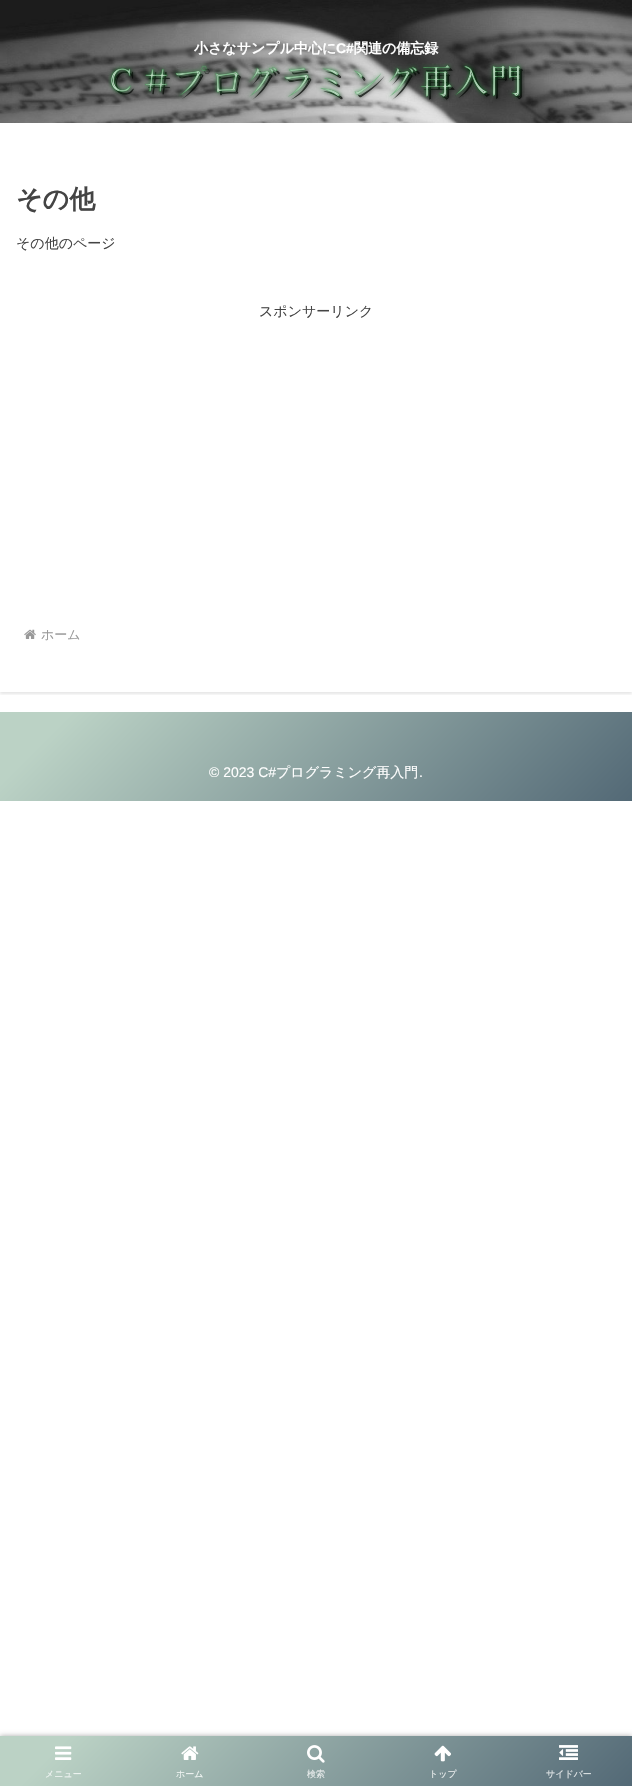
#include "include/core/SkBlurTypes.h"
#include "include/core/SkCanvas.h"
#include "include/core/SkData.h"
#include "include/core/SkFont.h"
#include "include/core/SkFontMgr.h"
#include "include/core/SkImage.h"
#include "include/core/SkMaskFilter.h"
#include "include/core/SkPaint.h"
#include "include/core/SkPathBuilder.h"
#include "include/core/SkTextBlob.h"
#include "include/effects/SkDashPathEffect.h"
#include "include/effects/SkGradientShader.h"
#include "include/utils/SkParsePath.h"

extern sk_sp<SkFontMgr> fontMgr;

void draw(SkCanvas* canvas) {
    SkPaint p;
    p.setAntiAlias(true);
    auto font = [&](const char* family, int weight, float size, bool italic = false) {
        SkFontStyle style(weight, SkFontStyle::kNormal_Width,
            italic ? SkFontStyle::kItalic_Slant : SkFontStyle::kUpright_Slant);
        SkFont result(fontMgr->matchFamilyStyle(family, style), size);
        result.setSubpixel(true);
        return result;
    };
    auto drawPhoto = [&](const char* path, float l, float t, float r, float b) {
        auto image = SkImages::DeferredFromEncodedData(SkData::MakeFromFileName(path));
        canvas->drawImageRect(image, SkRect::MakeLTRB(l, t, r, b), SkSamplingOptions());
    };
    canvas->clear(0xFFFFFFFF);
    drawPhoto("media/1.png", 0, 0, 632, 123);
    auto font1 = font("WenQuanYi Zen Hei", 700, 14);
    p.setColor(0xFFFFFFFF);
    canvas->drawString("小さなサンプル中心に", 194, 53, font1, p);
    auto font2 = font("Liberation Sans", 700, 14);
    canvas->drawString("C#", 336, 53, font2, p);
    canvas->drawString("関連の備忘録", 354, 53, font1, p);
    drawPhoto("media/2.png", 108, 63, 525, 102);
    canvas->save();
    canvas->clipRect(SkRect::MakeLTRB(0, 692, 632, 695));
    p.setColor(0x1A000000);
    p.setMaskFilter(SkMaskFilter::MakeBlur(kNormal_SkBlurStyle, 1.5f));
    canvas->drawRect(SkRect::MakeLTRB(0, 137, 632, 694), p);
    p.setMaskFilter(nullptr);
    canvas->restore();
    auto font3 = font("WenQuanYi Zen Hei", 700, 26);
    p.setColor(0xFF444444);
    canvas->drawString("その他", 16, 208, font3, p);
    auto font4 = font("WenQuanYi Zen Hei", 500, 14);
    canvas->drawString("その他のページ", 16, 248, font4, p);
    canvas->drawString("スポンサーリンク", 259, 316, font4, p);
    drawPhoto("media/3.png", 24, 629, 36, 639);
    auto font5 = font("WenQuanYi Zen Hei", 500, 13);
    p.setColor(0xFF999999);
    canvas->drawString("ホーム", 41, 639, font5, p);
    {
        const SkColor colors[] = {0xFFBBD2C5, 0xFF536976};
        const float stops[] = {0.1f, 1};
        const SkPoint ends[] = {{136, 576}, {496, 937}};
        p.setShader(SkGradientShader::MakeLinear(ends, colors, stops, 2, SkTileMode::kClamp));
        p.setAlpha(255);
    }
    canvas->drawRect(SkRect::MakeLTRB(0, 712, 632, 801), p);
    auto font6 = font("Liberation Sans", 400, 14);
    p.setShader(nullptr);
    p.setColor(0xFFFFFFFF);
    canvas->drawString("© 2023 C#", 209, 777, font6, p);
    canvas->drawString("プログラミング再入門", 276, 777, font4, p);
    canvas->drawString(".", 419, 777, font6, p);
    p.setColor(0xFFA9A9A9);
    p.setMaskFilter(SkMaskFilter::MakeBlur(kNormal_SkBlurStyle, 2.5f));
    canvas->drawRect(SkRect::MakeLTRB(0, 1736, 632, 1786), p);
    p.setMaskFilter(nullptr);
    {
        const SkColor colors[] = {0xFFBBD2C5, 0xFF536976};
        const float stops[] = {0.1f, 1};
        const SkPoint ends[] = {{145, 1591}, {487, 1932}};
        p.setShader(SkGradientShader::MakeLinear(ends, colors, stops, 2, SkTileMode::kClamp));
        p.setAlpha(255);
    }
    canvas->drawRect(SkRect::MakeLTRB(0, 1736, 632, 1786), p);
    drawPhoto("media/4.png", 55, 1746, 72, 1760);
    auto font7 = font("WenQuanYi Zen Hei", 500, 9);
    p.setShader(nullptr);
    p.setColor(0xFFF0F5F3);
    canvas->drawString("メニュー", 45, 1777, font7, p);
    drawPhoto("media/5.png", 181, 1746, 199, 1760);
    canvas->drawString("ホーム", 176, 1777, font7, p);
    drawPhoto("media/6.png", 307, 1745, 325, 1763);
    p.setColor(0xFFE8ECEC);
    canvas->drawString("検索", 307, 1777, font7, p);
    drawPhoto("media/7.png", 434, 1745, 451, 1762);
    canvas->drawString("トップ", 429, 1777, font7, p);
    drawPhoto("media/8.png", 559, 1745, 578, 1760);
    p.setColor(0xFFDFE4E6);
    canvas->drawString("サイドバー", 546, 1777, font7, p);
}
